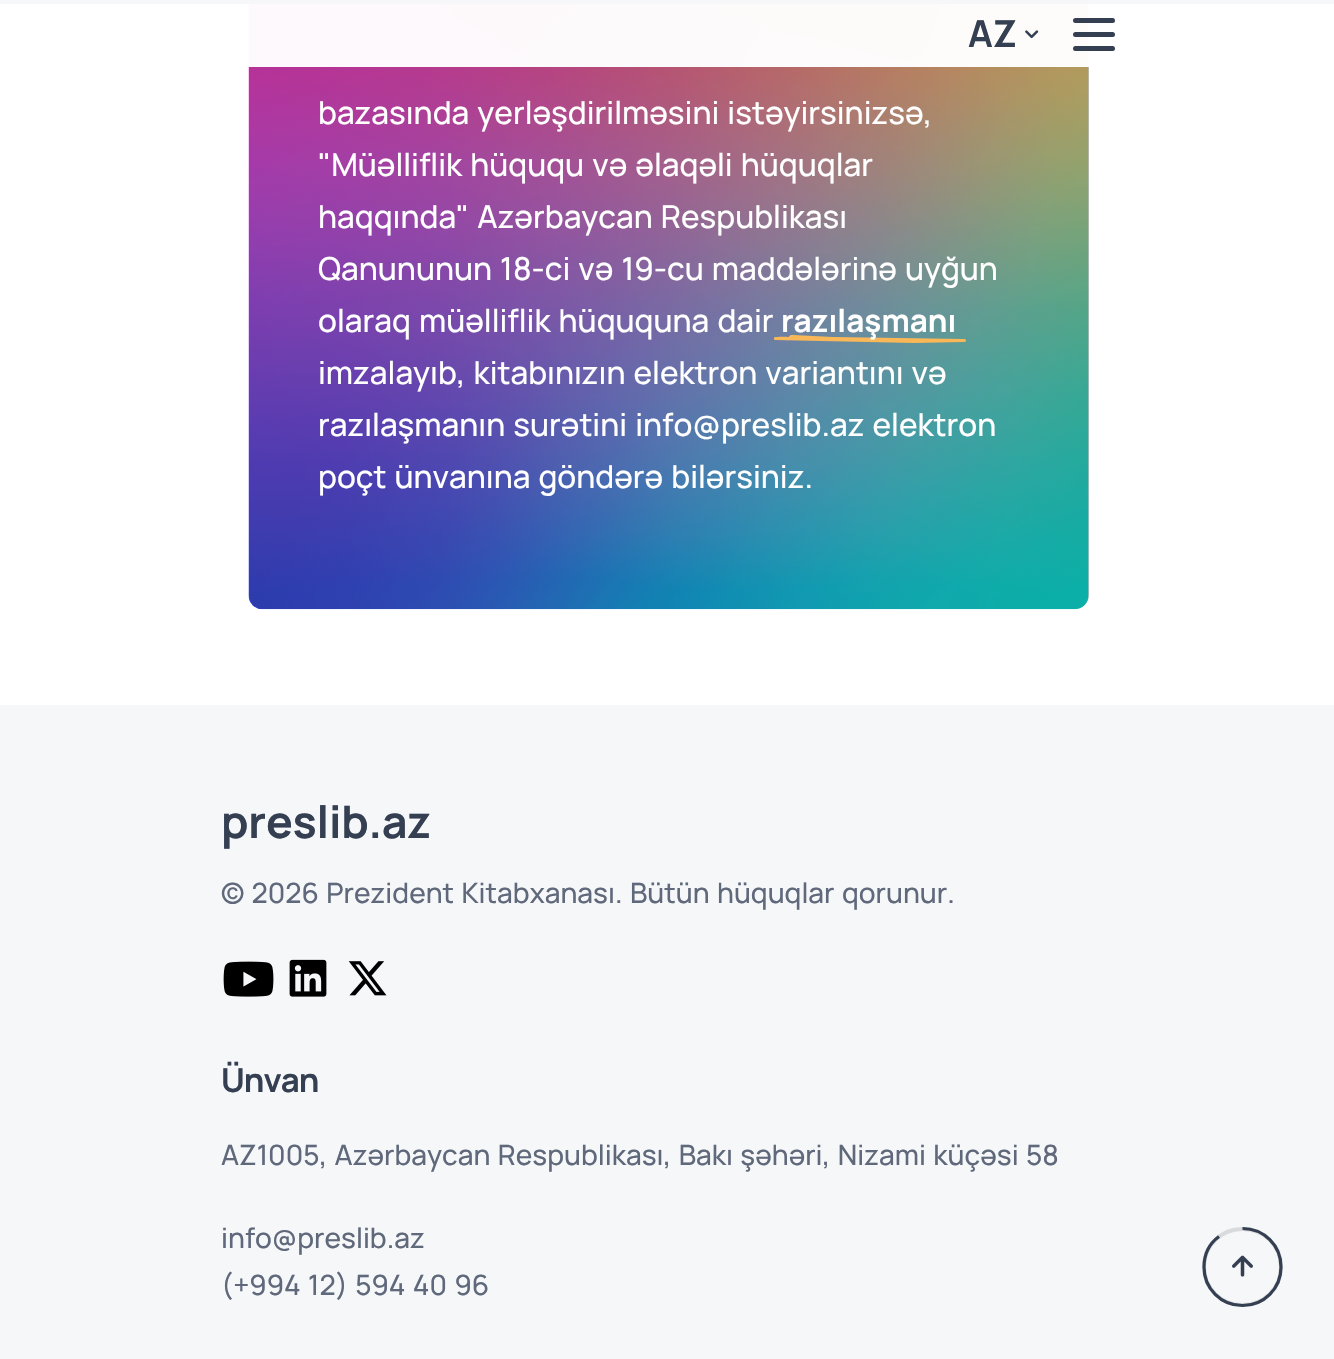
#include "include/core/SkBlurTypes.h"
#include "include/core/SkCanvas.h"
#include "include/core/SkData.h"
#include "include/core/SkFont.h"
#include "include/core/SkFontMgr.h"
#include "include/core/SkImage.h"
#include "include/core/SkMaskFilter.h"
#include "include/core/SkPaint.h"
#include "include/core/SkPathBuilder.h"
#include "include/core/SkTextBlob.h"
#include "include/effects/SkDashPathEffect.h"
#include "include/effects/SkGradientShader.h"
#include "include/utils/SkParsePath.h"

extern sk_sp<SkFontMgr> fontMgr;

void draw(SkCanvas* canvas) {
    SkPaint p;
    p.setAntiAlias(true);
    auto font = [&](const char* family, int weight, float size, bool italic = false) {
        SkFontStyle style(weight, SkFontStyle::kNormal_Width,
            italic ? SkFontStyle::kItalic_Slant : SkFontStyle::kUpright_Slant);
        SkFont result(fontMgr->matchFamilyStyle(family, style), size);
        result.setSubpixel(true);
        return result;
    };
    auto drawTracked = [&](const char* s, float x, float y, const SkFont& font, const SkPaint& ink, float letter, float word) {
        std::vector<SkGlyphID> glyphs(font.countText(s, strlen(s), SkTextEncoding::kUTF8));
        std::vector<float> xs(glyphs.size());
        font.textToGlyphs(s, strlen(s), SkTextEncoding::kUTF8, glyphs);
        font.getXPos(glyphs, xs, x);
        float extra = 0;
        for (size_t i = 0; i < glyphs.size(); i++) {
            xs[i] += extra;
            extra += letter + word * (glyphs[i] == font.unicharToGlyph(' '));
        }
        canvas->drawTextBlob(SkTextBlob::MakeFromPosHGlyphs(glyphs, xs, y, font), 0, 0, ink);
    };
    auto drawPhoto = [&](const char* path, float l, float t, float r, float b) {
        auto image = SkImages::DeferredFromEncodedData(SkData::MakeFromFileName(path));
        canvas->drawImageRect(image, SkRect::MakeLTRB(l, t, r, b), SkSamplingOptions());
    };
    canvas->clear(0xFFFFFFFF);
    drawPhoto("media/2.png", 248, 4, 1089, 610);
    p.setColor(0x4D1E2228);
    canvas->drawRoundRect(SkRect::MakeLTRB(249, -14, 1089, 609), 14, 14, p);
    p.setColor(0xF7FFFFFF);
    canvas->drawRect(SkRect::MakeLTRB(248, 4, 1089, 67), p);
    p.setColor(0xFFF6F7F9);
    canvas->drawRect(SkRect::MakeLTRB(0, 0, 1334, 4), p);
    auto font1 = font("Manrope", 700, 37);
    p.setColor(0xFF343F52);
    drawTracked("AZ", 968, 47, font1, p, -0.25f, 0);
    drawPhoto("media/1.png", 1025, 30, 1039, 39);
    canvas->drawRoundRect(SkRect::MakeLTRB(1073, 18, 1115, 23), 2.5f, 2.5f, p);
    canvas->drawRoundRect(SkRect::MakeLTRB(1073, 32, 1115, 37), 2.5f, 2.5f, p);
    canvas->drawRoundRect(SkRect::MakeLTRB(1073, 46, 1115, 51), 2.5f, 2.5f, p);
    auto font2 = font("Manrope", 500, 31.5f);
    p.setColor(0xFFFFFFFF);
    {
        const struct { const char* s; float x, y; } items[] = {
            {"bazasında yerləşdirilməsini istəyirsinizsə,", 318, 124},
            {"\"Müəlliflik hüququ və əlaqəli hüquqlar", 318, 176},
            {"haqqında\" Azərbaycan Respublikası", 318, 228},
            {"Qanununun 18-ci və 19-cu maddələrinə uyğun", 318, 280},
            {"olaraq müəlliflik hüququna dair", 318, 332},
        };
        for (auto [s, x, y] : items) {
            drawTracked(s, x, y, font2, p, 0, 1.75f);
        }
    }
    canvas->save();
    canvas->clipRect(SkRect::MakeLTRB(774, 334, 966, 345));
    p.setColor(0xFFFAB758);
    canvas->drawPath(SkPathBuilder().moveTo(833, 337).lineTo(793, 335).cubicTo(792, 335, 789, 335, 789, 337).cubicTo(787, 337, 771, 336, 773, 339).lineTo(775, 340).lineTo(914, 343).lineTo(963, 342).cubicTo(967, 342, 968, 339, 963, 339).close().detach(), p);
    canvas->restore();
    auto font3 = font("Manrope", 700, 31.5f);
    p.setColor(0xFFFFFFFF);
    canvas->drawString("razılaşmanı", 781, 332, font3, p);
    {
        const struct { const char* s; float x, y; } items[] = {
            {"imzalayıb, kitabınızın elektron variantını və", 318, 384},
            {"razılaşmanın surətini info@preslib.az elektron", 318, 436},
            {"poçt ünvanına göndərə bilərsiniz.", 318, 488},
        };
        for (auto [s, x, y] : items) {
            drawTracked(s, x, y, font2, p, 0, 1.75f);
        }
    }
    p.setColor(0xFFF6F7F9);
    canvas->drawRect(SkRect::MakeLTRB(0, 705, 1334, 1359), p);
    auto font4 = font("Manrope", 700, 44.75f);
    p.setColor(0xFF343F52);
    drawTracked("preslib.az", 221, 838, font4, p, -0.25f, 0);
    auto font5 = font("Manrope", 500, 28);
    p.setColor(0xFF60697B);
    drawTracked("© 2026 Prezident Kitabxanası.", 221, 903, font5, p, 0, 1.75f);
    drawTracked("Bütün hüquqlar qorunur.", 630, 903, font5, p, 0, 1.75f);
    drawPhoto("media/3.png", 223, 961, 274, 997);
    drawPhoto("media/4.png", 289, 959, 327, 997);
    drawPhoto("media/5.png", 348, 961, 387, 996);
    auto font6 = font("Manrope", 700, 33);
    p.setColor(0xFF343F52);
    drawTracked("Ünvan", 221, 1092, font6, p, -1, 0);
    p.setColor(0xFF60697B);
    drawTracked("AZ1005, Azərbaycan Respublikası, Bakı şəhəri, Nizami küçəsi 58", 221, 1165, font5, p, 0, 1.75f);
    canvas->drawString("info@preslib.az", 221, 1248, font5, p);
    drawTracked("(+994 12) 594 40 96", 221, 1295, font5, p, 0, 1.75f);
    p.setStyle(SkPaint::kStroke_Style);
    p.setStrokeWidth(4);
    p.setColor(0xFFD9DADC);
    canvas->drawRoundRect(SkRect::MakeLTRB(1204, 1229, 1281, 1305), 38, 38, p);
    p.setStrokeWidth(3.2f);
    p.setColor(0xFF343F52);
    canvas->drawPath(SkPathBuilder().moveTo(1242.5f, 1228.5f).cubicTo(1264, 1228.5f, 1281, 1245.5f, 1281, 1267).cubicTo(1281, 1288.5f, 1264, 1305.5f, 1242.5f, 1305.5f).cubicTo(1221, 1305.5f, 1204, 1288.5f, 1204, 1267).cubicTo(1204, 1254.5f, 1209.5f, 1243.5f, 1219, 1236.5f).detach(), p);
    drawPhoto("media/6.png", 1232, 1255, 1253, 1277);
}
